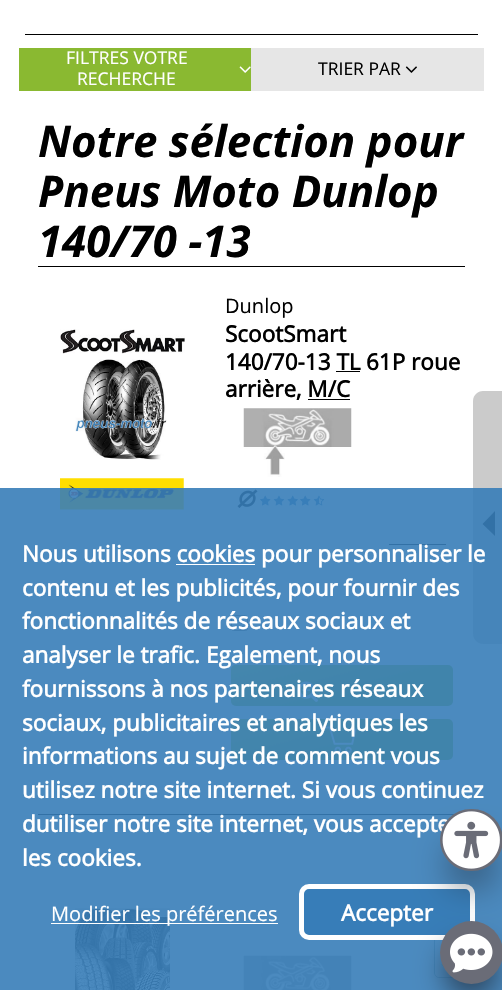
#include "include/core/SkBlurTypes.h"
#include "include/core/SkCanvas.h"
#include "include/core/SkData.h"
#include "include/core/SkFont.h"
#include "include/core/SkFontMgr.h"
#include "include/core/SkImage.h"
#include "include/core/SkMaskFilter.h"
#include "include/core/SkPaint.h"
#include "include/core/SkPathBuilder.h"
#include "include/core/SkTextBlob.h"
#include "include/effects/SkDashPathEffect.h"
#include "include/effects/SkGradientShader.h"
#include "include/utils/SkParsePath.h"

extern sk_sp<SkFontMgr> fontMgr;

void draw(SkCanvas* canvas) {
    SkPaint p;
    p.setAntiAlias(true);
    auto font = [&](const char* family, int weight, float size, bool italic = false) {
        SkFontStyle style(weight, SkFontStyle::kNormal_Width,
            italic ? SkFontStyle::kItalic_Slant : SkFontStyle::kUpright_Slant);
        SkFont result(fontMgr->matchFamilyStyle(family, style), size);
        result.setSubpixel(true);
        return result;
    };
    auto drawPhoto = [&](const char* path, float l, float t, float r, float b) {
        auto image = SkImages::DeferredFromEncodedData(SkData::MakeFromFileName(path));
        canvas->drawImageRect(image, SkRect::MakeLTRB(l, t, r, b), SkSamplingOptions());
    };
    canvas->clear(0xFFFFFFFF);
    p.setColor(0xFF000000);
    canvas->drawRect(SkRect::MakeLTRB(25, 34, 478, 35), p);
    p.setColor(0xFFCBCBCB);
    canvas->drawPath(SkPathBuilder().moveTo(483, 391).lineTo(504, 391).lineTo(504, 644).lineTo(483, 644).cubicTo(477.5f, 644, 473, 639.5f, 473, 634).lineTo(473, 401).cubicTo(473, 395.5f, 477.5f, 391, 483, 391).close().detach(), p);
    p.setColor(0xFF000000);
    canvas->drawPath(SkPathBuilder().moveTo(495, 511).lineTo(495, 536).lineTo(482.5f, 524).close().detach(), p);
    p.setColor(0xFF8AB931);
    canvas->drawRect(SkRect::MakeLTRB(19, 48, 251, 91), p);
    auto font1 = font("Open Sans", 400, 17.5f);
    p.setColor(0xFFFFFFFF);
    canvas->drawString("FILTRES VOTRE", 66, 64, font1, p);
    canvas->drawString("RECHERCHE", 77, 85, font1, p);
    drawPhoto("media/1.png", 239, 66, 251, 73);
    p.setColor(0xFFE6E6E6);
    canvas->drawRect(SkRect::MakeLTRB(251, 48, 484, 91), p);
    p.setColor(0xFF000000);
    canvas->drawString("TRIER PAR", 318, 75, font1, p);
    drawPhoto("media/2.png", 405, 66, 417, 73);
    auto font2 = font("Open Sans", 700, 43.75f, true);
    {
        const struct { const char* s; float x, y; } items[] = {
            {"Notre sélection pour", 38, 157},
            {"Pneus Moto Dunlop", 38, 207},
            {"140/70 -13", 38, 257},
        };
        for (auto [s, x, y] : items) {
            canvas->drawString(s, x, y, font2, p);
        }
    }
    canvas->drawRect(SkRect::MakeLTRB(38, 266, 465, 267), p);
    drawPhoto("media/3.png", 60, 329, 185, 354);
    drawPhoto("media/4.png", 75, 359, 167, 460);
    drawPhoto("media/5.png", 60, 478, 184, 510);
    auto font3 = font("Open Sans", 400, 20);
    canvas->drawString("Dunlop", 225, 313, font3, p);
    auto font4 = font("Open Sans", 700, 22.5f);
    canvas->drawString("ScootSmart", 225, 342, font4, p);
    canvas->drawString("140/70-13 TL", 225, 370, font4, p);
    canvas->drawRect(SkRect::MakeLTRB(336, 371, 360, 372), p);
    canvas->drawString("61P roue", 366, 370, font4, p);
    canvas->drawString("arrière, M/C", 225, 397, font4, p);
    canvas->drawRect(SkRect::MakeLTRB(308, 399, 350, 400), p);
    drawPhoto("media/6.png", 243, 408, 352, 477);
    drawPhoto("media/7.png", 237, 489, 258, 508);
    drawPhoto("media/8.png", 260, 495, 271, 506);
    drawPhoto("media/9.png", 273, 495, 285, 506);
    drawPhoto("media/10.png", 287, 495, 298, 506);
    drawPhoto("media/8.png", 300, 495, 311, 506);
    drawPhoto("media/11.png", 313, 495, 325, 506);
    canvas->drawRect(SkRect::MakeLTRB(389, 544, 446, 545), p);
    p.setStyle(SkPaint::kStroke_Style);
    p.setStrokeWidth(1);
    p.setColor(0xFF767676);
    canvas->drawRoundRect(SkRect::MakeLTRB(231.5f, 615.5f, 247.5f, 630.5f), 2, 2, p);
    p.setStyle(SkPaint::kFill_Style);
    p.setColor(0xFF8AB931);
    canvas->drawRoundRect(SkRect::MakeLTRB(231, 665, 453, 706), 5, 5, p);
    {
        const SkColor colors[] = {0xFFB5D246, 0x00B5D246};
        const float stops[] = {0, 0.6f};
        const SkPoint ends[] = {{329, 639}, {354, 733}};
        p.setShader(SkGradientShader::MakeLinear(ends, colors, stops, 2, SkTileMode::kClamp));
        p.setAlpha(255);
    }
    canvas->drawRoundRect(SkRect::MakeLTRB(231, 665, 453, 706), 5, 5, p);
    drawPhoto("media/12.png", 297, 681, 318, 702);
    p.setShader(nullptr);
    p.setColor(0xFF8AB931);
    canvas->drawRoundRect(SkRect::MakeLTRB(231, 719, 453, 760), 5, 5, p);
    {
        const SkColor colors[] = {0xFFB5D246, 0x00B5D246};
        const float stops[] = {0, 0.6f};
        const SkPoint ends[] = {{329, 692}, {354, 786}};
        p.setShader(SkGradientShader::MakeLinear(ends, colors, stops, 2, SkTileMode::kClamp));
        p.setAlpha(255);
    }
    canvas->drawRoundRect(SkRect::MakeLTRB(231, 719, 453, 760), 5, 5, p);
    drawPhoto("media/13.png", 321, 726, 357, 754);
    p.setShader(nullptr);
    p.setColor(0xFF000000);
    canvas->drawRect(SkRect::MakeLTRB(38, 814, 454, 815), p);
    drawPhoto("media/14.png", 75, 908, 170, 990);
    drawPhoto("media/15.png", 243, 955, 352, 990);
    p.setStyle(SkPaint::kStroke_Style);
    p.setColor(0xFF8DA9A9);
    canvas->drawRoundRect(SkRect::MakeLTRB(434.5f, 935.5f, 477.5f, 977.5f), 4.5f, 4.5f, p);
    drawPhoto("media/18.png", 441, 963, 445, 969);
    p.setStyle(SkPaint::kFill_Style);
    p.setColor(0xE6377DB8);
    canvas->drawRect(SkRect::MakeLTRB(0, 488, 502, 990), p);
    p.setColor(0xFFFFFFFF);
    canvas->drawString("Nous utilisons cookies pour personnaliser le", 22, 562, font4, p);
    canvas->drawRect(SkRect::MakeLTRB(176, 564, 255, 565), p);
    {
        const struct { const char* s; float x, y; } items[] = {
            {"contenu et les publicités, pour fournir des", 22, 596},
            {"fonctionnalités de réseaux sociaux et", 22, 629},
            {"analyser le trafic. Egalement, nous", 22, 663},
            {"fournissons à nos partenaires réseaux", 22, 697},
            {"sociaux, publicitaires et analytiques les", 22, 731},
            {"informations au sujet de comment vous", 22, 764},
            {"utilisez notre site internet. Si vous continuez", 22, 798},
            {"dutiliser notre site internet, vous accepte", 22, 832},
            {"les cookies.", 22, 866},
        };
        for (auto [s, x, y] : items) {
            canvas->drawString(s, x, y, font4, p);
        }
    }
    canvas->drawRect(SkRect::MakeLTRB(51, 923, 278, 924), p);
    canvas->drawString("Modifier les préférences", 51, 921, font3, p);
    p.setColor(0xFF377DB8);
    canvas->drawRoundRect(SkRect::MakeLTRB(301.5f, 886.5f, 472.5f, 937.5f), 7.5f, 7.5f, p);
    p.setStyle(SkPaint::kStroke_Style);
    p.setStrokeWidth(5);
    p.setColor(0xFFFFFFFF);
    canvas->drawRoundRect(SkRect::MakeLTRB(301.5f, 886.5f, 472.5f, 937.5f), 7.5f, 7.5f, p);
    p.setStyle(SkPaint::kFill_Style);
    canvas->drawString("Accepter", 341, 921, font4, p);
    p.setColor(0xFF26394D);
    p.setMaskFilter(SkMaskFilter::MakeBlur(kNormal_SkBlurStyle, 19));
    canvas->drawRoundRect(SkRect::MakeLTRB(453, 846, 490, 884), 18.5f, 18.5f, p);
    p.setMaskFilter(nullptr);
    p.setColor(0xFF6A6C77);
    canvas->drawRoundRect(SkRect::MakeLTRB(440, 809, 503, 871), 31, 31, p);
    drawPhoto("media/16.png", 442, 811, 500, 869);
    p.setColor(0xFF26394D);
    p.setMaskFilter(SkMaskFilter::MakeBlur(kNormal_SkBlurStyle, 15.5f));
    canvas->drawRoundRect(SkRect::MakeLTRB(446, 946, 496, 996), 25, 25, p);
    p.setMaskFilter(nullptr);
    p.setColor(0xFF6A6C77);
    canvas->drawCircle(471.5f, 952.5f, 31.5f, p);
    drawPhoto("media/17.png", 450, 933, 493, 973);
}
